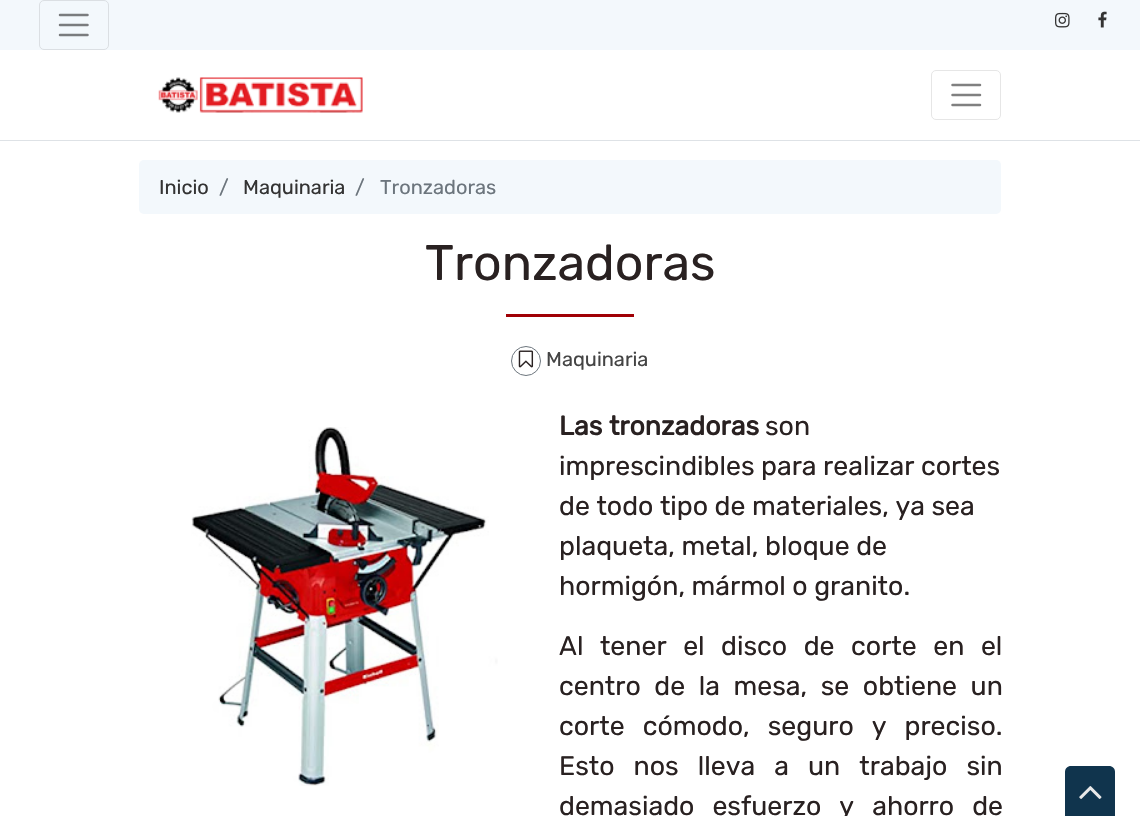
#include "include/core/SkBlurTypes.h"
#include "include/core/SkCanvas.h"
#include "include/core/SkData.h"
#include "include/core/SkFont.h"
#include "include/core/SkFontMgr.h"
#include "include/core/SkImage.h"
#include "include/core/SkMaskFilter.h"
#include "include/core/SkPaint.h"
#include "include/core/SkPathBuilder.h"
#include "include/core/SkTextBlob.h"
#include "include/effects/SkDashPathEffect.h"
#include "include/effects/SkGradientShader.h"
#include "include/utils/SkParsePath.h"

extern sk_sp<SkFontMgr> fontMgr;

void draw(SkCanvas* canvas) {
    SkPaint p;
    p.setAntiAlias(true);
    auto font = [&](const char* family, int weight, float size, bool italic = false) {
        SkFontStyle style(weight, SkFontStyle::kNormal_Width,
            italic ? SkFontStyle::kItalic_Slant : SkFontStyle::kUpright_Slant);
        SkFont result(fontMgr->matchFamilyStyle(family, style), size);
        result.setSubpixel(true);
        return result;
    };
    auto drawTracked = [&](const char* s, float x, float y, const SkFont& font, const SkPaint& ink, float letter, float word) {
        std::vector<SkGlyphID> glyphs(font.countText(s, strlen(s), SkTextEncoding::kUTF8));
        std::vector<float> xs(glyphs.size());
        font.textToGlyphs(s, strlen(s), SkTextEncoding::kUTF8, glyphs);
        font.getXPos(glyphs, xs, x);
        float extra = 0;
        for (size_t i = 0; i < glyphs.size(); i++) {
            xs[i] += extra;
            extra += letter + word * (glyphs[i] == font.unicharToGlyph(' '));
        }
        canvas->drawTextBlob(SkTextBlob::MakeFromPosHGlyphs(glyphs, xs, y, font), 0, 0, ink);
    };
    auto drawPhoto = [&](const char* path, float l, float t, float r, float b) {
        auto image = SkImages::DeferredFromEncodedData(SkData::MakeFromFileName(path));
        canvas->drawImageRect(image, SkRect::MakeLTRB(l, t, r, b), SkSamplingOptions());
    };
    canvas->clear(0xFFFFFFFF);
    p.setColor(0xFFF3F8FC);
    canvas->drawRect(SkRect::MakeLTRB(0, 0, 1140, 50), p);
    p.setStyle(SkPaint::kStroke_Style);
    p.setStrokeWidth(1);
    p.setColor(0xFFDBDFE3);
    canvas->drawRoundRect(SkRect::MakeLTRB(39.5f, 0.5f, 108.5f, 49.5f), 4.5f, 4.5f, p);
    p.setStrokeWidth(2.5f);
    p.setStrokeCap(SkPaint::kRound_Cap);
    p.setColor(0xFF7A7C7E);
    canvas->drawPath(SkPathBuilder().moveTo(60, 15).lineTo(87.5f, 15).moveTo(60, 25).lineTo(87.5f, 25).moveTo(60, 35).lineTo(87.5f, 35).detach(), p);
    drawPhoto("media/1.png", 1055, 12, 1070, 28);
    drawPhoto("media/2.png", 1098, 11, 1107, 28);
    p.setStyle(SkPaint::kFill_Style);
    p.setColor(0xFFDEE2E6);
    canvas->drawRect(SkRect::MakeLTRB(0, 140, 1140, 141), p);
    drawPhoto("media/3.png", 158, 77, 363, 113);
    p.setStyle(SkPaint::kStroke_Style);
    p.setStrokeWidth(1);
    p.setStrokeCap(SkPaint::kButt_Cap);
    p.setColor(0xFFE6E6E6);
    canvas->drawRoundRect(SkRect::MakeLTRB(931.5f, 70.5f, 1000.5f, 119.5f), 4.5f, 4.5f, p);
    p.setStrokeWidth(2.5f);
    p.setStrokeCap(SkPaint::kRound_Cap);
    p.setColor(0xFF808080);
    canvas->drawPath(SkPathBuilder().moveTo(952.5f, 85).lineTo(980, 85).moveTo(952.5f, 95).lineTo(980, 95).moveTo(952.5f, 105).lineTo(980, 105).detach(), p);
    p.setStyle(SkPaint::kFill_Style);
    p.setColor(0xFFF3F8FC);
    canvas->drawRoundRect(SkRect::MakeLTRB(139, 160, 1001, 214), 5, 5, p);
    auto font1 = font("Rubik", 300, 20);
    p.setColor(0xFF333333);
    canvas->drawString("Inicio", 159, 194, font1, p);
    p.setColor(0xFF6C757D);
    canvas->drawString("/", 219, 194, font1, p);
    p.setColor(0xFF333333);
    canvas->drawString("Maquinaria", 243, 194, font1, p);
    p.setColor(0xFF6C757D);
    canvas->drawString("/", 355, 194, font1, p);
    canvas->drawString("Tronzadoras", 380, 194, font1, p);
    auto font2 = font("Rubik", 300, 50);
    p.setColor(0xFF292121);
    canvas->drawString("Tronzadoras", 425, 280, font2, p);
    p.setColor(0xFFA00005);
    canvas->drawRect(SkRect::MakeLTRB(506, 314, 634, 317), p);
    p.setStyle(SkPaint::kStroke_Style);
    p.setStrokeWidth(1);
    p.setStrokeCap(SkPaint::kButt_Cap);
    p.setColor(0xFF6C757D);
    canvas->drawCircle(526, 361, 14.5f, p);
    drawPhoto("media/4.png", 518, 350, 534, 368);
    p.setStyle(SkPaint::kFill_Style);
    p.setColor(0xFF444444);
    canvas->drawString("Maquinaria", 546, 366, font1, p);
    drawPhoto("media/5.png", 191, 427, 498, 786);
    auto font3 = font("Rubik", 700, 26.7f);
    p.setColor(0xFF292121);
    canvas->drawString("Las tronzadoras", 559, 435, font3, p);
    auto font4 = font("Rubik", 300, 26.7f);
    {
        const struct { const char* s; float x, y; } items[] = {
            {"son", 765, 435},
            {"imprescindibles para realizar cortes", 559, 475},
            {"de todo tipo de materiales, ya sea", 559, 515},
            {"plaqueta, metal, bloque de", 559, 555},
            {"hormigón, mármol o granito.", 559, 595},
        };
        for (auto [s, x, y] : items) {
            canvas->drawString(s, x, y, font4, p);
        }
    }
    drawTracked("Al tener el disco de corte en el", 559, 655, font4, p, 0, 10);
    drawTracked("centro de la mesa, se obtiene un", 559, 695, font4, p, 0, 7);
    drawTracked("corte cómodo, seguro y preciso.", 559, 735, font4, p, 0, 11.5f);
    drawTracked("Esto nos lleva a un trabajo sin", 559, 775, font4, p, 0, 12.5f);
    drawTracked("demasiado esfuerzo y ahorro de", 559, 815, font4, p, 0, 11.5f);
    p.setColor(0xFF10344D);
    canvas->drawPath(SkPathBuilder().moveTo(1071, 766).lineTo(1109, 766).cubicTo(1112.5f, 766, 1115, 768.5f, 1115, 772).lineTo(1115, 816).lineTo(1065, 816).lineTo(1065, 772).cubicTo(1065, 768.5f, 1067.5f, 766, 1071, 766).close().detach(), p);
    drawPhoto("media/6.png", 1079, 786, 1102, 799);
}
